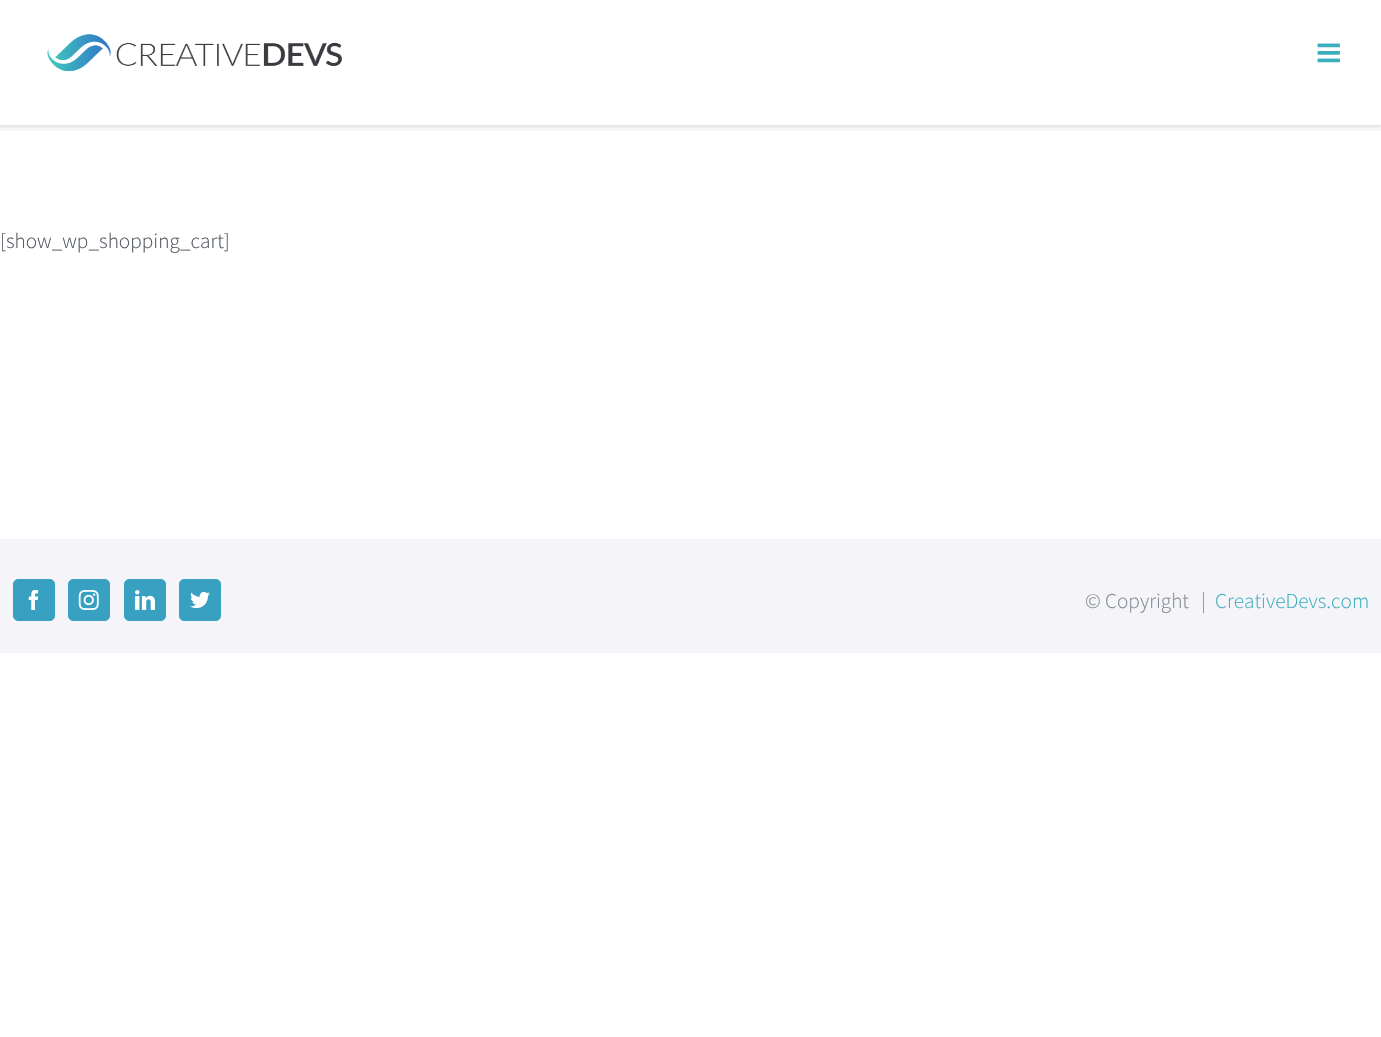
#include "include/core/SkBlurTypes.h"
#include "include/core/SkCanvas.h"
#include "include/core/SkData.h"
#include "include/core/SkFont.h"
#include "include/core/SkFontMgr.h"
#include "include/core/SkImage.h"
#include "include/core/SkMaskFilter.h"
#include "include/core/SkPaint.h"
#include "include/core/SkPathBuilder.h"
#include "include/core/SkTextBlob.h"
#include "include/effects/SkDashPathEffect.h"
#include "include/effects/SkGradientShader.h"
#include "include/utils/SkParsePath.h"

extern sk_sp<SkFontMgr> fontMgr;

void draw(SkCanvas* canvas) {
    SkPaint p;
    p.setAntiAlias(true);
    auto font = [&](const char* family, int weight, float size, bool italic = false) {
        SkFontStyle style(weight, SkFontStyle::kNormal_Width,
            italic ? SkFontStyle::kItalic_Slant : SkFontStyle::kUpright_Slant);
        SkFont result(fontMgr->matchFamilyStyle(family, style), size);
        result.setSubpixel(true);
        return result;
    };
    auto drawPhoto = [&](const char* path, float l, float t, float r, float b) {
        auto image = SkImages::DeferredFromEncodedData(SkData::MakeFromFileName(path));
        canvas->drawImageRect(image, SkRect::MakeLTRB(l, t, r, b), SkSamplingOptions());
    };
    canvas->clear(0xFFFFFFFF);
    p.setColor(0xFFF6F6F6);
    canvas->drawRect(SkRect::MakeLTRB(0, 125, 1381, 131), p);
    canvas->save();
    canvas->clipRect(SkRect::MakeLTRB(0, 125, 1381, 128));
    p.setColor(0x1F000000);
    p.setMaskFilter(SkMaskFilter::MakeBlur(kNormal_SkBlurStyle, 2));
    canvas->drawRect(SkRect::MakeLTRB(0, 1, 1381, 126), p);
    p.setMaskFilter(nullptr);
    canvas->restore();
    drawPhoto("media/1.png", 47, 34, 342, 72);
    drawPhoto("media/2.png", 1317, 43, 1340, 63);
    auto font1 = font("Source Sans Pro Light", 300, 21.25f);
    p.setColor(0xFF4F565D);
    canvas->drawString("[show_wp_shopping_cart]", 0, 248, font1, p);
    p.setColor(0xFFF5F4F9);
    canvas->drawRect(SkRect::MakeLTRB(0, 539, 1381, 653), p);
    p.setColor(0xFF38A0C1);
    canvas->drawRoundRect(SkRect::MakeLTRB(13.5f, 579.5f, 54.5f, 620.5f), 4.5f, 4.5f, p);
    p.setStyle(SkPaint::kStroke_Style);
    p.setStrokeWidth(1);
    canvas->drawRoundRect(SkRect::MakeLTRB(13.5f, 579.5f, 54.5f, 620.5f), 4.5f, 4.5f, p);
    drawPhoto("media/3.png", 28, 590, 39, 610);
    p.setStyle(SkPaint::kFill_Style);
    canvas->drawRoundRect(SkRect::MakeLTRB(68.5f, 579.5f, 109.5f, 620.5f), 4.5f, 4.5f, p);
    p.setStyle(SkPaint::kStroke_Style);
    canvas->drawRoundRect(SkRect::MakeLTRB(68.5f, 579.5f, 109.5f, 620.5f), 4.5f, 4.5f, p);
    drawPhoto("media/4.png", 78, 590, 99, 610);
    p.setStyle(SkPaint::kFill_Style);
    canvas->drawRoundRect(SkRect::MakeLTRB(124.5f, 579.5f, 165.5f, 620.5f), 4.5f, 4.5f, p);
    p.setStyle(SkPaint::kStroke_Style);
    canvas->drawRoundRect(SkRect::MakeLTRB(124.5f, 579.5f, 165.5f, 620.5f), 4.5f, 4.5f, p);
    drawPhoto("media/5.png", 135, 590, 155, 610);
    p.setStyle(SkPaint::kFill_Style);
    canvas->drawRoundRect(SkRect::MakeLTRB(179.5f, 579.5f, 220.5f, 620.5f), 4.5f, 4.5f, p);
    p.setStyle(SkPaint::kStroke_Style);
    canvas->drawRoundRect(SkRect::MakeLTRB(179.5f, 579.5f, 220.5f, 620.5f), 4.5f, 4.5f, p);
    drawPhoto("media/6.png", 190, 591, 210, 609);
    p.setStyle(SkPaint::kFill_Style);
    p.setColor(0xFF7E8890);
    canvas->drawString("© Copyright", 1085, 608, font1, p);
    canvas->drawString("|", 1201, 608, font1, p);
    p.setColor(0xFF3BAFBF);
    canvas->drawString("CreativeDevs.com", 1215, 608, font1, p);
}
